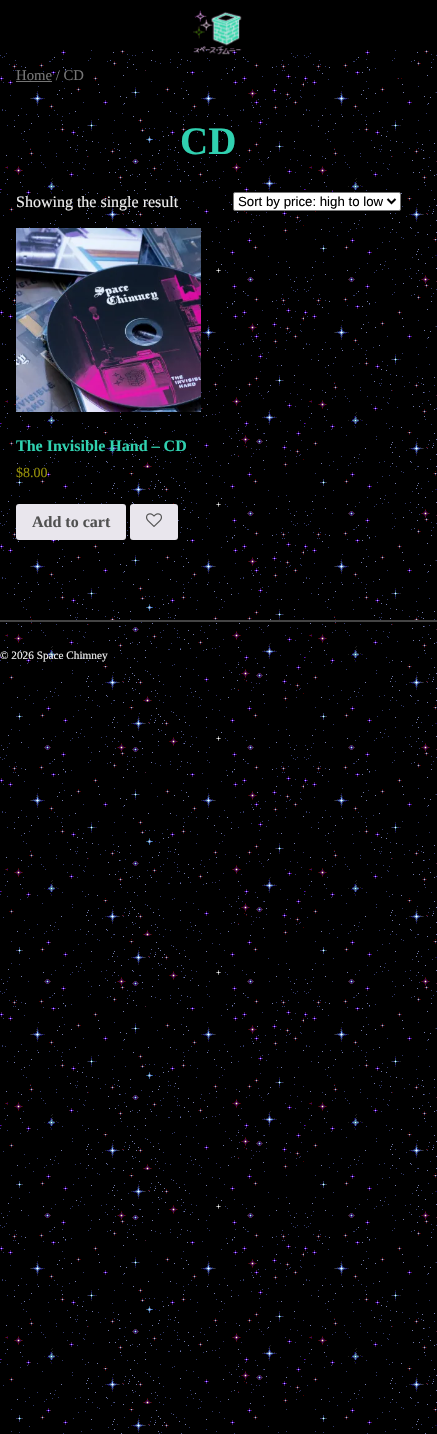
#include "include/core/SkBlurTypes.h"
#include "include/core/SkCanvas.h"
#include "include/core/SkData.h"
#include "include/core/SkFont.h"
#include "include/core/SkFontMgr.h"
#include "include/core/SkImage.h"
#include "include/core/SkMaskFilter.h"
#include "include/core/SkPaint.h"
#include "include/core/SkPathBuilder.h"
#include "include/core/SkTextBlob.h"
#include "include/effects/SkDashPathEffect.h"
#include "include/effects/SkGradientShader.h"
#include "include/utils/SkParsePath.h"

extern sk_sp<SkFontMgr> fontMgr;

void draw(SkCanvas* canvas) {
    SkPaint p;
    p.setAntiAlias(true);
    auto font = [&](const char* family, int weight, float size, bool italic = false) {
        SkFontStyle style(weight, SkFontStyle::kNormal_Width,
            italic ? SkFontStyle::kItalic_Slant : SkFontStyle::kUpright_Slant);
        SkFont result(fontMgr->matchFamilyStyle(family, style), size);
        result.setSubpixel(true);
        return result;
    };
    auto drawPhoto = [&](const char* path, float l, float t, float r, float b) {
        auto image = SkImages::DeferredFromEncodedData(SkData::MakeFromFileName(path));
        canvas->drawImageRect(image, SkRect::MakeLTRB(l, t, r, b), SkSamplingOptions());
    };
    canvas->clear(0xFFFFFFFF);
    drawPhoto("media/1.png", 0, 50, 437, 1434);
    p.setColor(0xFF000000);
    canvas->drawRect(SkRect::MakeLTRB(0, 0, 437, 50), p);
    drawPhoto("media/2.png", 193, 10, 242, 55);
    canvas->drawRect(SkRect::MakeLTRB(399, 76, 401, 84), p);
    auto font1 = font("Liberation Serif", 400, 14.75f);
    p.setColor(0xFF767676);
    canvas->drawString("Home / CD", 16, 80, font1, p);
    canvas->drawRect(SkRect::MakeLTRB(16, 81, 52, 82), p);
    auto font2 = font("Liberation Serif", 700, 39);
    p.setColor(0xFF30D1B0);
    canvas->drawString("CD", 180, 154, font2, p);
    auto font3 = font("Liberation Serif", 400, 16);
    p.setColor(0xFFEEEEEE);
    canvas->drawString("Showing the single result", 16, 207, font3, p);
    p.setColor(0xFFFFFFFF);
    canvas->drawRoundRect(SkRect::MakeLTRB(233.5f, 192.5f, 400.5f, 210.5f), 1.5f, 1.5f, p);
    p.setStyle(SkPaint::kStroke_Style);
    p.setStrokeWidth(1);
    p.setColor(0xFF767676);
    canvas->drawRoundRect(SkRect::MakeLTRB(233.5f, 192.5f, 400.5f, 210.5f), 1.5f, 1.5f, p);
    p.setStrokeWidth(2);
    p.setColor(0xFF000000);
    canvas->drawPath(SkPathBuilder().moveTo(387.5f, 199).lineTo(391.5f, 203).lineTo(395.5f, 199).detach(), p);
    auto font4 = font("Liberation Sans", 400, 13.25f);
    p.setStyle(SkPaint::kFill_Style);
    canvas->drawString("Sort by price: high to low", 238, 206, font4, p);
    drawPhoto("media/3.png", 16, 228, 201, 412);
    auto font5 = font("Liberation Serif", 700, 16);
    p.setColor(0xFF30D1B0);
    canvas->drawString("The Invisible Hand – CD", 16, 451, font5, p);
    auto font6 = font("Liberation Serif", 400, 14);
    p.setColor(0xFF958E09);
    canvas->drawString("$8.00", 16, 477, font6, p);
    p.setColor(0xFFE9E6ED);
    canvas->drawRoundRect(SkRect::MakeLTRB(16, 504, 126, 540), 3, 3, p);
    p.setColor(0xFF515151);
    canvas->drawString("Add to cart", 32, 527, font5, p);
    p.setColor(0xFFE9E6ED);
    canvas->drawRoundRect(SkRect::MakeLTRB(130, 504, 178, 540), 3, 3, p);
    drawPhoto("media/4.png", 146, 513, 162, 527);
    p.setColor(0xFF444444);
    canvas->drawRect(SkRect::MakeLTRB(0, 620, 437, 622), p);
    auto font7 = font("Liberation Serif", 400, 11.25f);
    p.setColor(0xFFEEEEEE);
    canvas->drawString("© 2026 Space Chimney", 0, 659, font7, p);
}
